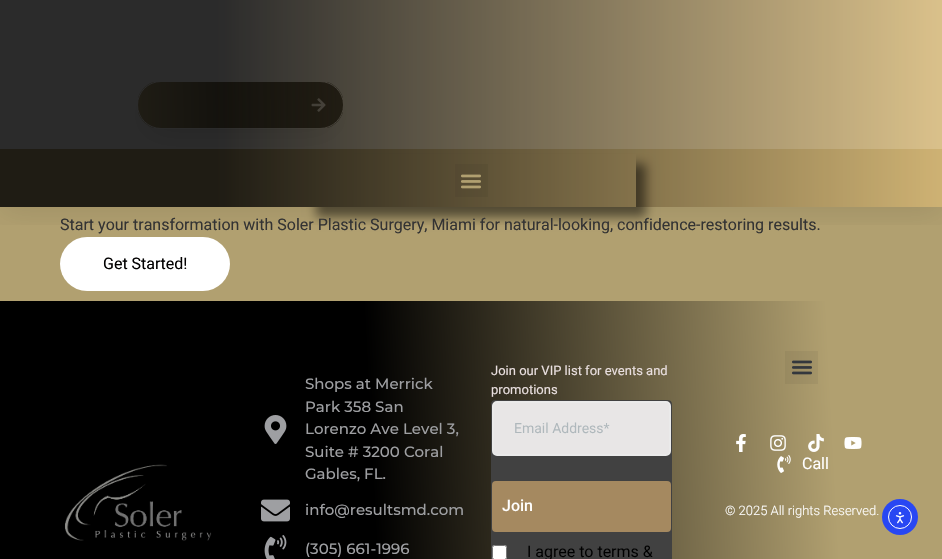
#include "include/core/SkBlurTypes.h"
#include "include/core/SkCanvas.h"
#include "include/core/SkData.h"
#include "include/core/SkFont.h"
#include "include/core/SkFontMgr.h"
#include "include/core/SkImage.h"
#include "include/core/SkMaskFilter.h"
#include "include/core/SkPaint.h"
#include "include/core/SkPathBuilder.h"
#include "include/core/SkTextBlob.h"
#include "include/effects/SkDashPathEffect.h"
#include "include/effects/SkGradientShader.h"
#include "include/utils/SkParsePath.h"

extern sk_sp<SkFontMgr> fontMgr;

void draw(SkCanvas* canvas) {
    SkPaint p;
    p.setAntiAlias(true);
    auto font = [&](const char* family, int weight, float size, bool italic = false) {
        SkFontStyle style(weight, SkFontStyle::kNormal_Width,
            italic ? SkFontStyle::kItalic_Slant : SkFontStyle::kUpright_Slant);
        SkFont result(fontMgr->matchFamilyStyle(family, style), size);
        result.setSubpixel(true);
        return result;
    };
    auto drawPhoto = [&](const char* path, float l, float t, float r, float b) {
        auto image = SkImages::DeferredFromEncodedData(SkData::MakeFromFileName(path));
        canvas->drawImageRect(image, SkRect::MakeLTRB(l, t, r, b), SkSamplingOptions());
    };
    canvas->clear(0xFFFFFFFF);
    p.setColor(0x29000000);
    p.setMaskFilter(SkMaskFilter::MakeBlur(kNormal_SkBlurStyle, 15));
    canvas->drawRoundRect(SkRect::MakeLTRB(146, 100, 335, 130), 15, 15, p);
    p.setMaskFilter(nullptr);
    canvas->save();
    canvas->clipPath(SkPathBuilder().moveTo(161, 81).lineTo(320, 81).cubicTo(333.5f, 81, 344, 91.5f, 344, 105).cubicTo(344, 118.5f, 333.5f, 129, 320, 129).lineTo(161, 129).cubicTo(147.5f, 129, 137, 118.5f, 137, 105).cubicTo(137, 91.5f, 147.5f, 81, 161, 81).close().detach(), true);
    {
        const SkColor colors[] = {0xFFB1A070, 0xFF000000};
        const float stops[] = {0, 1};
        const SkPoint ends[] = {{138, 107}, {343, 103}};
        p.setShader(SkGradientShader::MakeLinear(ends, colors, stops, 2, SkTileMode::kClamp));
        p.setAlpha(255);
    }
    canvas->drawRect(SkRect::MakeLTRB(138, 82, 343, 128), p);
    canvas->restore();
    p.setStyle(SkPaint::kStroke_Style);
    p.setStrokeWidth(1);
    p.setShader(nullptr);
    p.setColor(0xFFFFFFFF);
    canvas->drawRoundRect(SkRect::MakeLTRB(137.5f, 81.5f, 343.5f, 128.5f), 23.5f, 23.5f, p);
    drawPhoto("media/2.png", 311, 98, 326, 112);
    p.setStyle(SkPaint::kFill_Style);
    p.setColor(0xFFB1A070);
    canvas->drawRect(SkRect::MakeLTRB(0, 149, 942, 301), p);
    p.setColor(0xFFFFFFFF);
    canvas->drawRoundRect(SkRect::MakeLTRB(60, 237, 230, 291), 27, 27, p);
    canvas->save();
    canvas->clipRect(SkRect::MakeLTRB(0, 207, 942, 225));
    p.setColor(0x1A000000);
    p.setMaskFilter(SkMaskFilter::MakeBlur(kNormal_SkBlurStyle, 15));
    canvas->drawRect(SkRect::MakeLTRB(0, 5, 942, 212), p);
    p.setMaskFilter(nullptr);
    canvas->restore();
    {
        const SkColor colors[] = {0xD6020202, 0xD6D3B574};
        const float stops[] = {0.23f, 1};
        const SkPoint ends[] = {{0, 104}, {942, 103}};
        p.setShader(SkGradientShader::MakeLinear(ends, colors, stops, 2, SkTileMode::kClamp));
        p.setAlpha(255);
    }
    canvas->drawRect(SkRect::MakeLTRB(0, 0, 942, 207), p);
    canvas->save();
    canvas->clipPath(SkPathBuilder(SkPathFillType::kEvenOdd).moveTo(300, 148).lineTo(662, 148).lineTo(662, 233).lineTo(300, 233).close().moveTo(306, 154).lineTo(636, 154).lineTo(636, 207).lineTo(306, 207).close().detach(), true);
    p.setShader(nullptr);
    p.setColor(0x80000000);
    p.setMaskFilter(SkMaskFilter::MakeBlur(kNormal_SkBlurStyle, 5));
    canvas->drawRect(SkRect::MakeLTRB(316, 164, 646, 217), p);
    p.setMaskFilter(nullptr);
    canvas->restore();
    p.setColor(0x0D000000);
    canvas->drawRect(SkRect::MakeLTRB(455, 164, 488, 197), p);
    drawPhoto("media/1.png", 461, 174, 481, 189);
    auto font1 = font("Roboto", 400, 16);
    p.setColor(0xFF333333);
    canvas->drawString("Start your transformation with Soler Plastic Surgery, Miami for natural-looking, confidence-restoring results.", 60, 230, font1, p);
    p.setColor(0xFF020101);
    canvas->drawString("Get Started!", 103, 269, font1, p);
    {
        const SkColor colors[] = {0xFF000000, 0xFFB1A070};
        const float stops[] = {0.4f, 0.88f};
        const SkPoint ends[] = {{-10, 542}, {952, 492}};
        p.setShader(SkGradientShader::MakeLinear(ends, colors, stops, 2, SkTileMode::kClamp));
        p.setAlpha(255);
    }
    canvas->drawRect(SkRect::MakeLTRB(0, 301, 942, 559), p);
    drawPhoto("media/3.png", 64, 464, 212, 541);
    drawPhoto("media/4.png", 264, 415, 287, 444);
    auto font2 = font("Montserrat", 500, 15);
    p.setShader(nullptr);
    p.setColor(0xFF9E9FA2);
    {
        const struct { const char* s; float x, y; } items[] = {
            {"Shops at Merrick", 305, 389},
            {"Park 358 San", 305, 412},
            {"Lorenzo Ave Level 3,", 305, 434},
            {"Suite # 3200 Coral", 305, 457},
            {"Gables, FL.", 305, 479},
        };
        for (auto [s, x, y] : items) {
            canvas->drawString(s, x, y, font2, p);
        }
    }
    drawPhoto("media/5.png", 261, 499, 290, 522);
    canvas->drawString("info@resultsmd.com", 305, 515, font2, p);
    drawPhoto("media/6.png", 264, 535, 287, 559);
    canvas->drawString("(305) 661-1996", 305, 554, font2, p);
    auto font3 = font("Roboto", 400, 13);
    p.setColor(0xFFE9DFDF);
    canvas->drawString("Join our VIP list for events and", 491, 375, font3, p);
    canvas->drawString("promotions", 491, 394, font3, p);
    drawPhoto("media/7.png", 491, 400, 672, 559);
    p.setColor(0x0D000000);
    canvas->drawRect(SkRect::MakeLTRB(785, 351, 818, 384), p);
    drawPhoto("media/8.png", 792, 360, 812, 375);
    drawPhoto("media/9.png", 736, 434, 746, 452);
    drawPhoto("media/10.png", 770, 435, 786, 451);
    drawPhoto("media/11.png", 808, 434, 824, 452);
    drawPhoto("media/12.png", 844, 437, 862, 449);
    drawPhoto("media/13.png", 777, 455, 791, 473);
    p.setColor(0xFFFFFFFF);
    canvas->drawString("Call", 802, 469, font1, p);
    auto font4 = font("Roboto", 300, 13);
    canvas->drawString("© 2025 All rights Reserved.", 725, 515, font4, p);
    p.setColor(0xFF2847F3);
    canvas->drawCircle(900, 517, 18, p);
    p.setStyle(SkPaint::kStroke_Style);
    p.setColor(0xFFFFFFFF);
    canvas->drawCircle(900, 517, 11.5f, p);
    drawPhoto("media/14.png", 895, 512, 905, 524);
}
